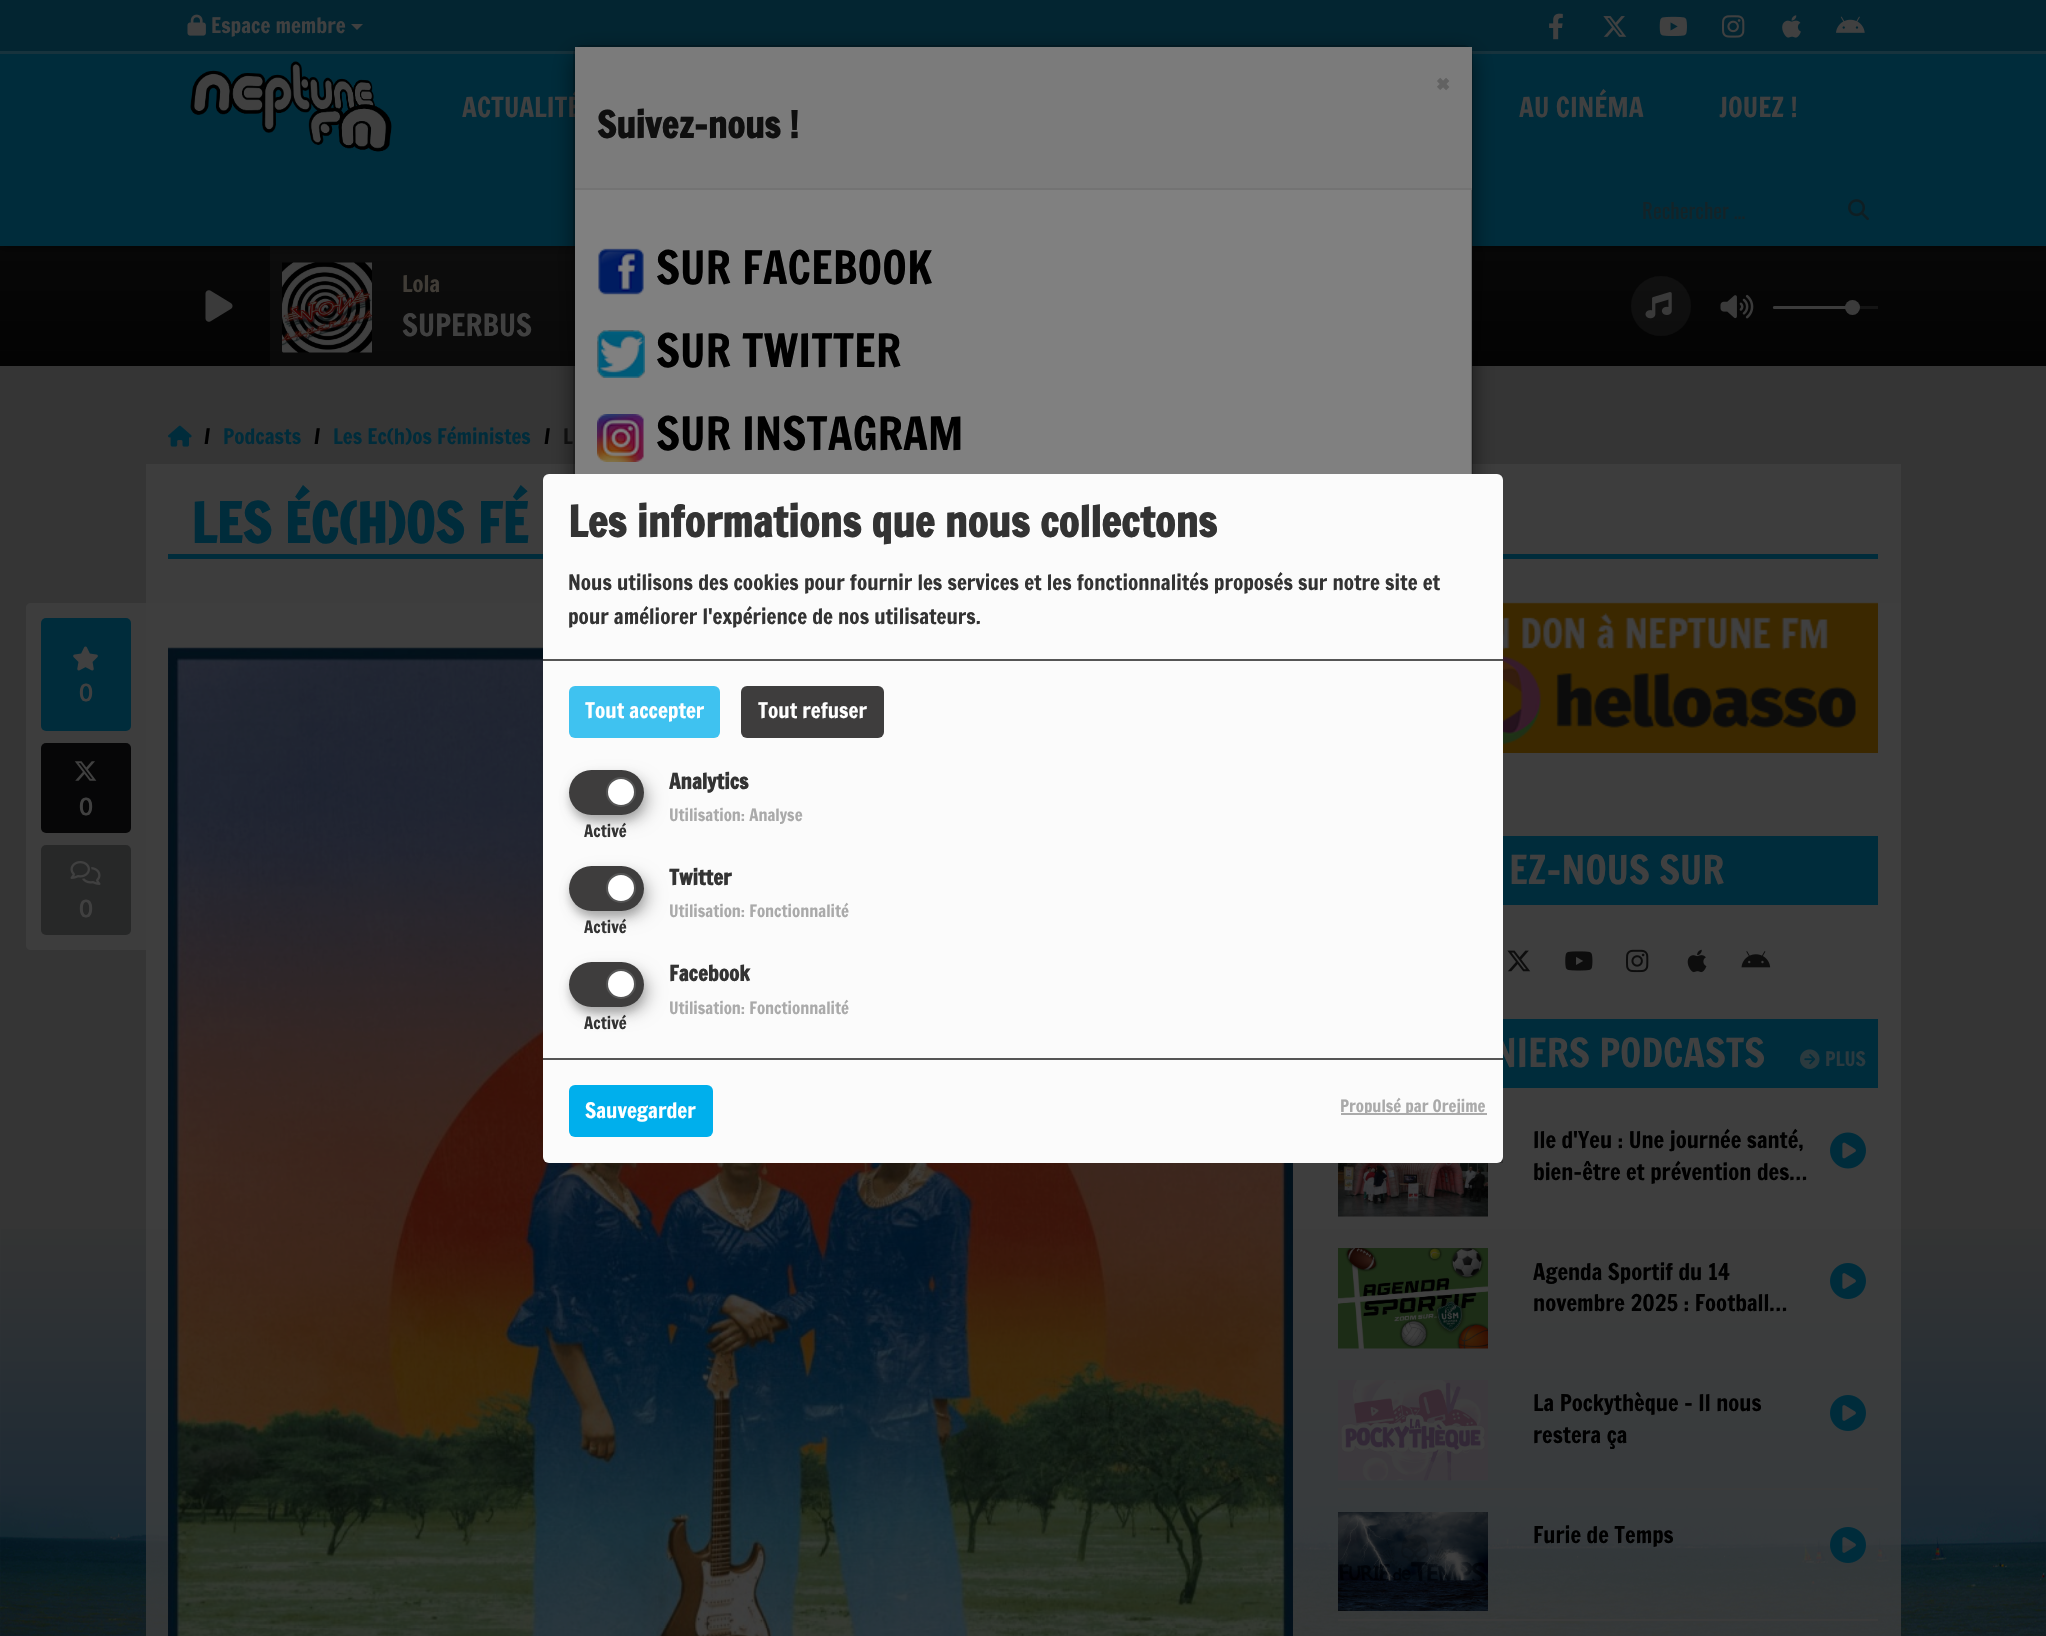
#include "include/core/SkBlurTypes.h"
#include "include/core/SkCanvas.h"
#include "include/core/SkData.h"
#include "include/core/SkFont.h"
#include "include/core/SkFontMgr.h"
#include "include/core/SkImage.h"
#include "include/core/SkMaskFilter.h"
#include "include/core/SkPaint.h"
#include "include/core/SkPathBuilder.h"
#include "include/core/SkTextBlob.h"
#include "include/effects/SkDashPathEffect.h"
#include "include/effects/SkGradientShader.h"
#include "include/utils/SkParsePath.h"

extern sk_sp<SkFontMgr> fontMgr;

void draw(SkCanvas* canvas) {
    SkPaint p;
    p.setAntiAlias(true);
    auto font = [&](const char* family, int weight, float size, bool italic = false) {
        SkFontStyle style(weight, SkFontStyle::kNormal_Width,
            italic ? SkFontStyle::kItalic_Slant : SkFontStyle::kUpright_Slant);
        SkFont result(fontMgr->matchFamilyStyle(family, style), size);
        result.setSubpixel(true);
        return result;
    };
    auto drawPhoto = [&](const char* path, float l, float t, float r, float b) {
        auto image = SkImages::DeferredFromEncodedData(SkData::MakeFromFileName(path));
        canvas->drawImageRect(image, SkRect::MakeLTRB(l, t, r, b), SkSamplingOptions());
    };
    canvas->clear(0xFF353535);
    drawPhoto("media/1.png", 0, 1229, 2046, 1636);
    {
        const SkColor colors[] = {0xFF070707, 0xFF030303};
        const float stops[] = {0, 1};
        const SkPoint ends[] = {{1023, 246}, {1023, 366}};
        p.setShader(SkGradientShader::MakeLinear(ends, colors, stops, 2, SkTileMode::kClamp));
        p.setAlpha(255);
    }
    canvas->drawRect(SkRect::MakeLTRB(0, 246, 2046, 366), p);
    {
        const SkColor colors[] = {0xFF0D0D0D, 0xFF090909};
        const float stops[] = {0, 1};
        const SkPoint ends[] = {{1023, 246}, {1023, 366}};
        p.setShader(SkGradientShader::MakeLinear(ends, colors, stops, 2, SkTileMode::kClamp));
        p.setAlpha(255);
    }
    canvas->drawRect(SkRect::MakeLTRB(270, 246, 575, 366), p);
    p.setShader(nullptr);
    p.setColor(0x66000000);
    p.setMaskFilter(SkMaskFilter::MakeBlur(kNormal_SkBlurStyle, 4));
    canvas->drawRect(SkRect::MakeLTRB(0, 56, 2046, 248), p);
    p.setMaskFilter(nullptr);
    p.setColor(0xFF032531);
    canvas->drawRect(SkRect::MakeLTRB(0, 0, 2046, 51), p);
    p.setColor(0xFF17333D);
    canvas->drawRect(SkRect::MakeLTRB(0, 51, 2046, 54), p);
    drawPhoto("media/2.png", 187, 14, 206, 36);
    auto font1 = font("Francois One", 400, 21);
    p.setColor(0xFF404040);
    canvas->drawString("Espace membre", 211, 33, font1, p);
    canvas->drawPath(SkPathBuilder().moveTo(351, 24).lineTo(363, 24).lineTo(357, 30).close().detach(), p);
    drawPhoto("media/3.png", 1549, 13, 1563, 40);
    drawPhoto("media/4.png", 1603, 16, 1627, 37);
    drawPhoto("media/5.png", 1659, 16, 1687, 36);
    drawPhoto("media/6.png", 1722, 15, 1745, 38);
    drawPhoto("media/7.png", 1782, 15, 1801, 38);
    drawPhoto("media/8.png", 1836, 16, 1865, 33);
    p.setColor(0xFF002C3B);
    canvas->drawRect(SkRect::MakeLTRB(0, 54, 2046, 246), p);
    drawPhoto("media/9.png", 190, 61, 392, 152);
    auto font2 = font("Francois One", 400, 27);
    p.setColor(0xFF404040);
    {
        const struct { const char* s; float x, y; } items[] = {
            {"ACTUALITÉ", 462, 117},
            {"AU CINÉMA", 1519, 117},
            {"JOUEZ !", 1719, 117},
        };
        for (auto [s, x, y] : items) {
            canvas->drawString(s, x, y, font2, p);
        }
    }
    auto font3 = font("Oswald", 400, 21);
    p.setColor(0xFF132328);
    canvas->drawString("Rechercher …", 1642, 219, font3, p);
    drawPhoto("media/10.png", 1848, 199, 1869, 221);
    drawPhoto("media/11.png", 205, 290, 233, 322);
    drawPhoto("media/12.png", 282, 262, 372, 353);
    auto font4 = font("Francois One", 400, 22.5f);
    p.setColor(0xFF403C36);
    canvas->drawString("Lola", 402, 292, font4, p);
    auto font5 = font("Francois One", 400, 30);
    p.setColor(0xFF404040);
    canvas->drawString("SUPERBUS", 402, 336, font5, p);
    p.setColor(0x26404040);
    canvas->drawCircle(1661, 306, 30, p);
    drawPhoto("media/13.png", 1645, 292, 1672, 319);
    drawPhoto("media/14.png", 1720, 294, 1754, 319);
    p.setColor(0xFF141414);
    canvas->drawRect(SkRect::MakeLTRB(1773, 306, 1878, 309), p);
    p.setColor(0xFF3B3B3B);
    canvas->drawRoundRect(SkRect::MakeLTRB(1773, 306, 1853, 309), 1.5f, 1.5f, p);
    canvas->drawCircle(1852.5f, 307.5f, 7.5f, p);
    {
        const struct { float l, t, r, b; SkColor color; } items[] = {
            {146, 464, 1901, 603, 0xFF3D3D3D},
            {168, 554, 1878, 559, 0xFF002C3B},
            {146, 603, 1901, 1636, 0xBF404040},
        };
        for (auto [l, t, r, b, color] : items) {
            p.setColor(color);
            canvas->drawRect(SkRect::MakeLTRB(l, t, r, b), p);
        }
    }
    drawPhoto("media/23.png", 1503, 602, 1878, 753);
    p.setColor(0x80000000);
    p.setMaskFilter(SkMaskFilter::MakeBlur(kNormal_SkBlurStyle, 11));
    canvas->drawRoundRect(SkRect::MakeLTRB(573, 53, 1473, 600), 9, 9, p);
    p.setMaskFilter(nullptr);
    p.setColor(0xFF808080);
    canvas->drawRect(SkRect::MakeLTRB(575, 190, 1472, 474), p);
    p.setStyle(SkPaint::kStroke_Style);
    p.setStrokeWidth(2);
    p.setColor(0x33000000);
    canvas->drawRoundRect(SkRect::MakeLTRB(574, 46, 1472, 592), 8, 8, p);
    p.setStyle(SkPaint::kFill_Style);
    p.setColor(0xFF7B7B7B);
    canvas->drawRect(SkRect::MakeLTRB(575, 47, 1472, 188), p);
    p.setColor(0xFF737373);
    canvas->drawRect(SkRect::MakeLTRB(575, 188, 1472, 190), p);
    auto font6 = font("Francois One", 700, 32);
    p.setColor(0xFF626262);
    canvas->drawString("×", 1436, 93, font6, p);
    auto font7 = font("Francois One", 700, 36);
    p.setColor(0xFF0F0F0F);
    canvas->drawString("Suivez-nous !", 597, 138, font7, p);
    drawPhoto("media/15.png", 598, 248, 644, 295);
    auto font8 = font("Francois One", 400, 45);
    p.setColor(0xFF000000);
    canvas->drawString("SUR FACEBOOK", 656, 284, font8, p);
    drawPhoto("media/16.png", 597, 330, 645, 378);
    canvas->drawString("SUR TWITTER", 656, 367, font8, p);
    drawPhoto("media/17.png", 597, 414, 644, 462);
    canvas->drawString("SUR INSTAGRAM", 656, 450, font8, p);
    drawPhoto("media/18.png", 168, 425, 192, 447);
    canvas->drawString("/", 204, 444, font1, p);
    p.setColor(0xFF002C3B);
    canvas->drawString("Podcasts", 223, 444, font1, p);
    p.setColor(0xFF000000);
    canvas->drawString("/", 314, 444, font1, p);
    p.setColor(0xFF002C3B);
    canvas->drawString("Les Ec(h)os Féministes", 333, 444, font1, p);
    p.setColor(0xFF000000);
    canvas->drawString("/", 544, 444, font1, p);
    p.setColor(0xFF0F0F0F);
    canvas->drawString("L", 563, 444, font1, p);
    auto font9 = font("Francois One", 700, 54);
    p.setColor(0xFF002C3B);
    canvas->drawString("LES ÉC(H)OS FÉ", 191, 543, font9, p);
    p.setColor(0xFF3D3D3D);
    canvas->drawPath(SkPathBuilder().moveTo(31, 603).lineTo(146, 603).lineTo(146, 950).lineTo(31, 950).cubicTo(28, 950, 26, 948, 26, 945).lineTo(26, 608).cubicTo(26, 605, 28, 603, 31, 603).close().detach(), p);
    p.setColor(0xFF002C3B);
    canvas->drawRoundRect(SkRect::MakeLTRB(41, 618, 131, 731), 5, 5, p);
    drawPhoto("media/19.png", 73, 646, 98, 671);
    auto font10 = font("Helvetica", 700, 24);
    p.setColor(0xFF404040);
    canvas->drawString("0", 79, 701, font10, p);
    p.setColor(0xFF060607);
    canvas->drawRoundRect(SkRect::MakeLTRB(41, 743, 131, 833), 5, 5, p);
    drawPhoto("media/20.png", 74, 761, 97, 781);
    p.setColor(0xFF404040);
    canvas->drawString("0", 79, 815, font10, p);
    p.setColor(0xFF272828);
    canvas->drawRoundRect(SkRect::MakeLTRB(41, 845, 131, 935), 5, 5, p);
    drawPhoto("media/21.png", 70, 861, 101, 885);
    p.setColor(0xFF404040);
    canvas->drawString("0", 79, 917, font10, p);
    drawPhoto("media/22.png", 168, 647, 1293, 1636);
    p.setColor(0xFF002C3B);
    canvas->drawRect(SkRect::MakeLTRB(1503, 836, 1878, 905), p);
    auto font11 = font("Francois One", 400, 39);
    p.setColor(0xFF404040);
    canvas->drawString("EZ-NOUS SUR", 1509, 884, font11, p);
    drawPhoto("media/24.png", 1507, 950, 1531, 972);
    drawPhoto("media/25.png", 1565, 951, 1593, 971);
    drawPhoto("media/26.png", 1626, 949, 1649, 973);
    drawPhoto("media/27.png", 1687, 949, 1707, 973);
    drawPhoto("media/28.png", 1741, 951, 1771, 968);
    p.setColor(0xFF002C3B);
    canvas->drawRect(SkRect::MakeLTRB(1503, 1019, 1878, 1088), p);
    p.setColor(0xFF404040);
    canvas->drawString("NIERS PODCASTS", 1493, 1067, font11, p);
    drawPhoto("media/29.png", 1800, 1049, 1820, 1069);
    auto font12 = font("Francois One", 400, 19.5f);
    p.setColor(0xFF2C3A3F);
    canvas->drawString("PLUS", 1825, 1066, font12, p);
    p.setColor(0xFF000000);
    canvas->drawString("Ile d'Yeu : Une journée santé,", 1533, 1148, font4, p);
    canvas->drawString("bien-être et prévention des…", 1533, 1180, font4, p);
    drawPhoto("media/30.png", 1830, 1132, 1866, 1169);
    drawPhoto("media/31.png", 1338, 1163, 1488, 1217);
    drawPhoto("media/32.png", 1338, 1248, 1488, 1349);
    canvas->drawString("Agenda Sportif du 14", 1533, 1280, font4, p);
    canvas->drawString("novembre 2025 : Football…", 1533, 1311, font4, p);
    drawPhoto("media/33.png", 1830, 1263, 1866, 1299);
    drawPhoto("media/34.png", 1338, 1380, 1488, 1481);
    canvas->drawString("La Pockythèque - Il nous", 1533, 1411, font4, p);
    canvas->drawString("restera ça", 1533, 1443, font4, p);
    drawPhoto("media/35.png", 1830, 1395, 1866, 1431);
    p.setColor(0xFF3B3B3B);
    canvas->drawRect(SkRect::MakeLTRB(1338, 1488, 1878, 1490), p);
    drawPhoto("media/36.png", 1338, 1512, 1488, 1611);
    p.setColor(0xFF000000);
    canvas->drawString("Furie de Temps", 1533, 1543, font4, p);
    drawPhoto("media/37.png", 1830, 1527, 1866, 1563);
    p.setColor(0xFF3B3B3B);
    canvas->drawRect(SkRect::MakeLTRB(1338, 1619, 1878, 1621), p);
    canvas->save();
    canvas->clipRect(SkRect::MakeLTRB(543, 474, 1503, 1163));
    p.setColor(0x30000000);
    p.setMaskFilter(SkMaskFilter::MakeBlur(kNormal_SkBlurStyle, 7.5f));
    canvas->drawRoundRect(SkRect::MakeLTRB(551, 482, 1511, 1170), 6, 6, p);
    p.setMaskFilter(nullptr);
    p.setColor(0x33000000);
    p.setMaskFilter(SkMaskFilter::MakeBlur(kNormal_SkBlurStyle, 4.5f));
    canvas->drawRoundRect(SkRect::MakeLTRB(543, 480, 1503, 1169), 6, 6, p);
    p.setMaskFilter(nullptr);
    canvas->restore();
    p.setColor(0xFFFBFBFB);
    canvas->drawRoundRect(SkRect::MakeLTRB(543, 474, 1503, 1163), 6, 6, p);
    p.setColor(0xFF555555);
    canvas->drawRect(SkRect::MakeLTRB(543, 659, 1503, 661), p);
    auto font13 = font("Francois One", 700, 42);
    p.setColor(0xFF333333);
    canvas->drawString("Les informations que nous collectons", 568, 537, font13, p);
    canvas->drawString("Nous utilisons des cookies pour fournir les services et les fonctionnalités proposés sur notre site et", 568, 590, font1, p);
    canvas->drawString("pour améliorer l'expérience de nos utilisateurs.", 568, 624, font1, p);
    p.setColor(0xFF3FC2F0);
    canvas->drawRoundRect(SkRect::MakeLTRB(569, 686, 720, 738), 6, 6, p);
    p.setColor(0xFFFFFFFF);
    canvas->drawString("Tout accepter", 585, 718, font1, p);
    p.setColor(0xFF3E3D3D);
    canvas->drawRoundRect(SkRect::MakeLTRB(741, 686, 884, 738), 6, 6, p);
    p.setColor(0xFFFFFFFF);
    canvas->drawString("Tout refuser", 758, 718, font1, p);
    auto font14 = font("Francois One", 700, 21);
    p.setColor(0xFF333333);
    canvas->drawString("Analytics", 669, 789, font14, p);
    p.setColor(0x30000000);
    p.setMaskFilter(SkMaskFilter::MakeBlur(kNormal_SkBlurStyle, 7.5f));
    canvas->drawRoundRect(SkRect::MakeLTRB(576, 777, 651, 822), 22.5f, 22.5f, p);
    p.setMaskFilter(nullptr);
    p.setColor(0x33000000);
    p.setMaskFilter(SkMaskFilter::MakeBlur(kNormal_SkBlurStyle, 4.5f));
    canvas->drawRoundRect(SkRect::MakeLTRB(569, 776, 644, 821), 22.5f, 22.5f, p);
    p.setMaskFilter(nullptr);
    p.setColor(0xFF3E3D3D);
    canvas->drawRoundRect(SkRect::MakeLTRB(569, 770, 644, 815), 22.5f, 22.5f, p);
    p.setColor(0xFFFFFFFF);
    canvas->drawCircle(621, 792, 14, p);
    p.setStyle(SkPaint::kStroke_Style);
    p.setColor(0xFF555555);
    canvas->drawCircle(621, 792, 14, p);
    auto font15 = font("Francois One", 400, 16.75f);
    p.setStyle(SkPaint::kFill_Style);
    p.setColor(0xFF333333);
    canvas->drawString("Activé", 584, 837, font15, p);
    p.setColor(0xFFAAAAAA);
    canvas->drawString("Utilisation: Analyse", 669, 821, font15, p);
    p.setColor(0xFF333333);
    canvas->drawString("Twitter", 669, 885, font14, p);
    p.setColor(0x30000000);
    p.setMaskFilter(SkMaskFilter::MakeBlur(kNormal_SkBlurStyle, 7.5f));
    canvas->drawRoundRect(SkRect::MakeLTRB(576, 873, 651, 918), 22.5f, 22.5f, p);
    p.setMaskFilter(nullptr);
    p.setColor(0x33000000);
    p.setMaskFilter(SkMaskFilter::MakeBlur(kNormal_SkBlurStyle, 4.5f));
    canvas->drawRoundRect(SkRect::MakeLTRB(569, 872, 644, 917), 22.5f, 22.5f, p);
    p.setMaskFilter(nullptr);
    p.setColor(0xFF3E3D3D);
    canvas->drawRoundRect(SkRect::MakeLTRB(569, 866, 644, 911), 22.5f, 22.5f, p);
    p.setColor(0xFFFFFFFF);
    canvas->drawCircle(621, 888, 14, p);
    p.setStyle(SkPaint::kStroke_Style);
    p.setColor(0xFF555555);
    canvas->drawCircle(621, 888, 14, p);
    p.setStyle(SkPaint::kFill_Style);
    p.setColor(0xFF333333);
    canvas->drawString("Activé", 584, 933, font15, p);
    p.setColor(0xFFAAAAAA);
    canvas->drawString("Utilisation: Fonctionnalité", 669, 917, font15, p);
    p.setColor(0xFF333333);
    canvas->drawString("Facebook", 669, 981, font14, p);
    p.setColor(0x30000000);
    p.setMaskFilter(SkMaskFilter::MakeBlur(kNormal_SkBlurStyle, 7.5f));
    canvas->drawRoundRect(SkRect::MakeLTRB(576, 969, 651, 1014), 22.5f, 22.5f, p);
    p.setMaskFilter(nullptr);
    p.setColor(0x33000000);
    p.setMaskFilter(SkMaskFilter::MakeBlur(kNormal_SkBlurStyle, 4.5f));
    canvas->drawRoundRect(SkRect::MakeLTRB(569, 968, 644, 1013), 22.5f, 22.5f, p);
    p.setMaskFilter(nullptr);
    p.setColor(0xFF3E3D3D);
    canvas->drawRoundRect(SkRect::MakeLTRB(569, 962, 644, 1007), 22.5f, 22.5f, p);
    p.setColor(0xFFFFFFFF);
    canvas->drawCircle(621, 984, 14, p);
    p.setStyle(SkPaint::kStroke_Style);
    p.setColor(0xFF555555);
    canvas->drawCircle(621, 984, 14, p);
    p.setStyle(SkPaint::kFill_Style);
    p.setColor(0xFF333333);
    canvas->drawString("Activé", 584, 1029, font15, p);
    p.setColor(0xFFAAAAAA);
    canvas->drawString("Utilisation: Fonctionnalité", 669, 1014, font15, p);
    p.setColor(0xFF555555);
    canvas->drawRect(SkRect::MakeLTRB(543, 1058, 1503, 1060), p);
    p.setColor(0xFF00AFEC);
    canvas->drawRoundRect(SkRect::MakeLTRB(569, 1085, 713, 1137), 6, 6, p);
    p.setColor(0xFFFFFFFF);
    canvas->drawString("Sauvegarder", 585, 1118, font1, p);
    p.setColor(0xFFAAAAAA);
    canvas->drawRect(SkRect::MakeLTRB(1341, 1113, 1487, 1115), p);
    canvas->drawString("Propulsé par Orejime", 1340, 1112, font15, p);
}
